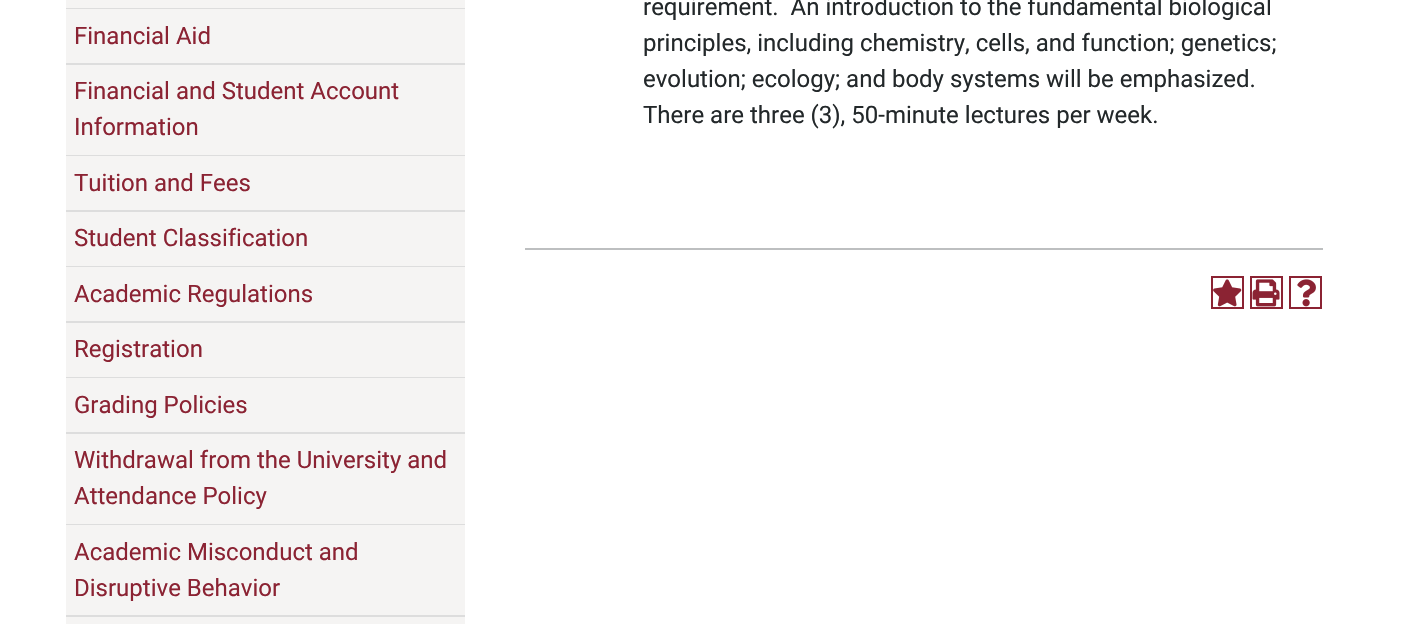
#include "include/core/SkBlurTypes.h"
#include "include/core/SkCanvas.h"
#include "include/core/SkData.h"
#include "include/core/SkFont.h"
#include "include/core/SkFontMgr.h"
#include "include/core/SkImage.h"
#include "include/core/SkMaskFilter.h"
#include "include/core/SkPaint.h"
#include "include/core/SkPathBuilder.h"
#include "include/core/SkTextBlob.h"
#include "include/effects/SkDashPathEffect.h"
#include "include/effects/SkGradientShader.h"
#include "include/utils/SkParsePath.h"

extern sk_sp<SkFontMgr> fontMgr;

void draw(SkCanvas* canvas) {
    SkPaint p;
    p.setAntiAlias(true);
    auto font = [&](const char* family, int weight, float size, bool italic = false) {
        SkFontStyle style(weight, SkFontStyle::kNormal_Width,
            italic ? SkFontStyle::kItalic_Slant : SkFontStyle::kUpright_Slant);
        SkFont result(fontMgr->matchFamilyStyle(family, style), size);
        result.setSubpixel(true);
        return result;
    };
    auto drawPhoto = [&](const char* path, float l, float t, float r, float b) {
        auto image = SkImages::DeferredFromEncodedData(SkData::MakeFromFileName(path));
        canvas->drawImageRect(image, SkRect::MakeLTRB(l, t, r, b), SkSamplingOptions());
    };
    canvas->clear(0xFFFFFFFF);
    {
        const struct { float l, t, r, b; SkColor color; } items[] = {
            {66, 0, 465, 8, 0xFFF5F4F3},
            {66, 8, 465, 9, 0xFFDDDDDD},
            {66, 9, 465, 63, 0xFFF5F4F3},
            {66, 63, 465, 65, 0xFFDDDDDD},
        };
        for (auto [l, t, r, b, color] : items) {
            p.setColor(color);
            canvas->drawRect(SkRect::MakeLTRB(l, t, r, b), p);
        }
    }
    auto font1 = font("Roboto", 400, 24);
    p.setColor(0xFF8B2333);
    canvas->drawString("Financial Aid", 74, 44, font1, p);
    p.setColor(0xFFF5F4F3);
    canvas->drawRect(SkRect::MakeLTRB(66, 65, 465, 155), p);
    p.setColor(0xFFDDDDDD);
    canvas->drawRect(SkRect::MakeLTRB(66, 155, 465, 156), p);
    p.setColor(0xFF8B2333);
    canvas->drawString("Financial and Student Account", 74, 99, font1, p);
    canvas->drawString("Information", 74, 135, font1, p);
    p.setColor(0xFFF5F4F3);
    canvas->drawRect(SkRect::MakeLTRB(66, 156, 465, 210), p);
    p.setColor(0xFFDDDDDD);
    canvas->drawRect(SkRect::MakeLTRB(66, 210, 465, 212), p);
    p.setColor(0xFF8B2333);
    canvas->drawString("Tuition and Fees", 74, 191, font1, p);
    p.setColor(0xFFF5F4F3);
    canvas->drawRect(SkRect::MakeLTRB(66, 212, 465, 266), p);
    p.setColor(0xFFDDDDDD);
    canvas->drawRect(SkRect::MakeLTRB(66, 266, 465, 267), p);
    p.setColor(0xFF8B2333);
    canvas->drawString("Student Classification", 74, 246, font1, p);
    p.setColor(0xFFF5F4F3);
    canvas->drawRect(SkRect::MakeLTRB(66, 267, 465, 321), p);
    p.setColor(0xFFDDDDDD);
    canvas->drawRect(SkRect::MakeLTRB(66, 321, 465, 323), p);
    p.setColor(0xFF8B2333);
    canvas->drawString("Academic Regulations", 74, 302, font1, p);
    p.setColor(0xFFF5F4F3);
    canvas->drawRect(SkRect::MakeLTRB(66, 323, 465, 377), p);
    p.setColor(0xFFDDDDDD);
    canvas->drawRect(SkRect::MakeLTRB(66, 377, 465, 378), p);
    p.setColor(0xFF8B2333);
    canvas->drawString("Registration", 74, 357, font1, p);
    p.setColor(0xFFF5F4F3);
    canvas->drawRect(SkRect::MakeLTRB(66, 378, 465, 432), p);
    p.setColor(0xFFDDDDDD);
    canvas->drawRect(SkRect::MakeLTRB(66, 432, 465, 434), p);
    p.setColor(0xFF8B2333);
    canvas->drawString("Grading Policies", 74, 413, font1, p);
    p.setColor(0xFFF5F4F3);
    canvas->drawRect(SkRect::MakeLTRB(66, 434, 465, 524), p);
    p.setColor(0xFFDDDDDD);
    canvas->drawRect(SkRect::MakeLTRB(66, 524, 465, 525), p);
    p.setColor(0xFF8B2333);
    canvas->drawString("Withdrawal from the University and", 74, 468, font1, p);
    canvas->drawString("Attendance Policy", 74, 504, font1, p);
    p.setColor(0xFFF5F4F3);
    canvas->drawRect(SkRect::MakeLTRB(66, 525, 465, 615), p);
    p.setColor(0xFFDDDDDD);
    canvas->drawRect(SkRect::MakeLTRB(66, 615, 465, 617), p);
    p.setColor(0xFF8B2333);
    canvas->drawString("Academic Misconduct and", 74, 560, font1, p);
    canvas->drawString("Disruptive Behavior", 74, 596, font1, p);
    p.setColor(0xFFF5F4F3);
    canvas->drawRect(SkRect::MakeLTRB(66, 617, 465, 624), p);
    p.setColor(0xFF23282A);
    {
        const struct { const char* s; float x, y; } items[] = {
            {"requirement.  An introduction to the fundamental biological", 643, 15},
            {"principles, including chemistry, cells, and function; genetics;", 643, 51},
            {"evolution; ecology; and body systems will be emphasized.", 643, 87},
            {"There are three (3), 50-minute lectures per week.", 643, 123},
        };
        for (auto [s, x, y] : items) {
            canvas->drawString(s, x, y, font1, p);
        }
    }
    p.setColor(0xFFBDBFC0);
    canvas->drawRect(SkRect::MakeLTRB(525, 248, 1323, 250), p);
    p.setStyle(SkPaint::kStroke_Style);
    p.setStrokeWidth(2);
    p.setColor(0xFF8B2333);
    canvas->drawRect(SkRect::MakeLTRB(1212, 277, 1243, 308), p);
    drawPhoto("media/1.png", 1213, 279, 1242, 307);
    canvas->drawRect(SkRect::MakeLTRB(1251, 277, 1282, 308), p);
    drawPhoto("media/2.png", 1252, 279, 1280, 307);
    canvas->drawRect(SkRect::MakeLTRB(1290, 277, 1321, 308), p);
    drawPhoto("media/3.png", 1297, 279, 1316, 307);
}
